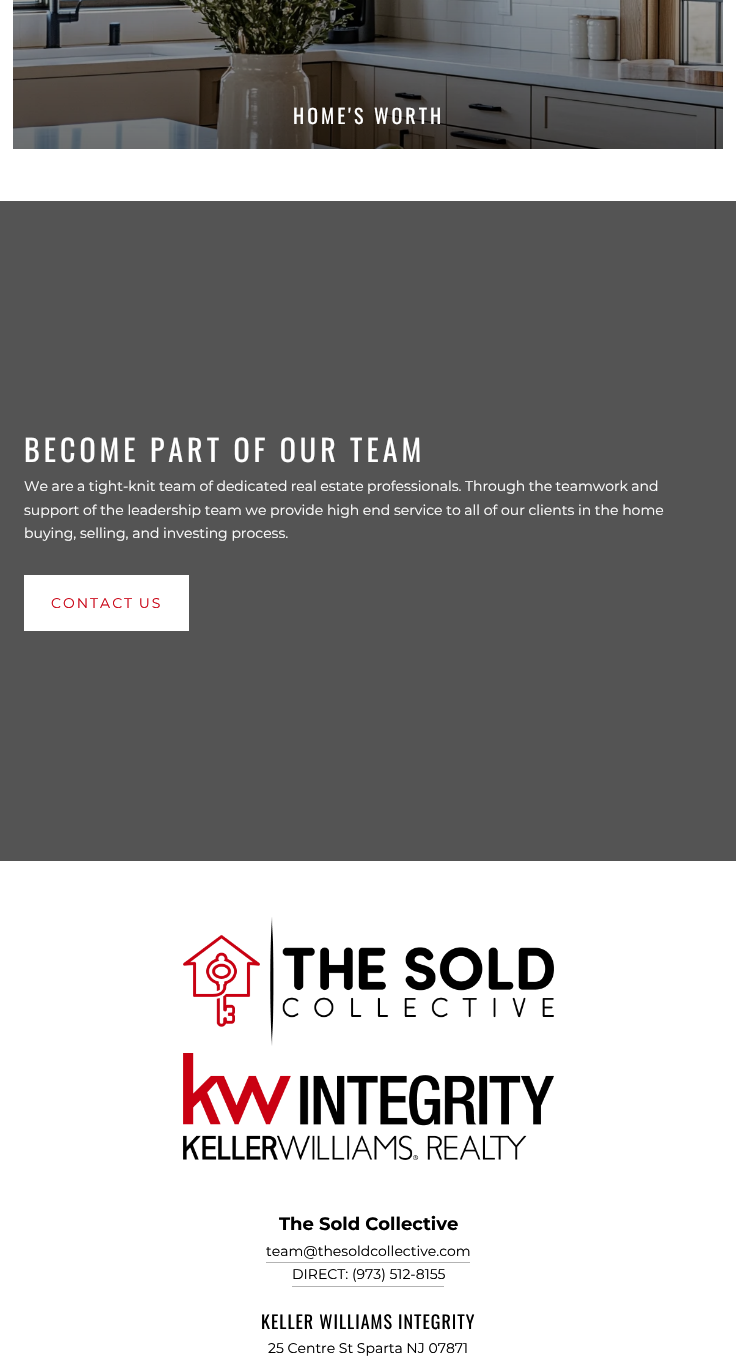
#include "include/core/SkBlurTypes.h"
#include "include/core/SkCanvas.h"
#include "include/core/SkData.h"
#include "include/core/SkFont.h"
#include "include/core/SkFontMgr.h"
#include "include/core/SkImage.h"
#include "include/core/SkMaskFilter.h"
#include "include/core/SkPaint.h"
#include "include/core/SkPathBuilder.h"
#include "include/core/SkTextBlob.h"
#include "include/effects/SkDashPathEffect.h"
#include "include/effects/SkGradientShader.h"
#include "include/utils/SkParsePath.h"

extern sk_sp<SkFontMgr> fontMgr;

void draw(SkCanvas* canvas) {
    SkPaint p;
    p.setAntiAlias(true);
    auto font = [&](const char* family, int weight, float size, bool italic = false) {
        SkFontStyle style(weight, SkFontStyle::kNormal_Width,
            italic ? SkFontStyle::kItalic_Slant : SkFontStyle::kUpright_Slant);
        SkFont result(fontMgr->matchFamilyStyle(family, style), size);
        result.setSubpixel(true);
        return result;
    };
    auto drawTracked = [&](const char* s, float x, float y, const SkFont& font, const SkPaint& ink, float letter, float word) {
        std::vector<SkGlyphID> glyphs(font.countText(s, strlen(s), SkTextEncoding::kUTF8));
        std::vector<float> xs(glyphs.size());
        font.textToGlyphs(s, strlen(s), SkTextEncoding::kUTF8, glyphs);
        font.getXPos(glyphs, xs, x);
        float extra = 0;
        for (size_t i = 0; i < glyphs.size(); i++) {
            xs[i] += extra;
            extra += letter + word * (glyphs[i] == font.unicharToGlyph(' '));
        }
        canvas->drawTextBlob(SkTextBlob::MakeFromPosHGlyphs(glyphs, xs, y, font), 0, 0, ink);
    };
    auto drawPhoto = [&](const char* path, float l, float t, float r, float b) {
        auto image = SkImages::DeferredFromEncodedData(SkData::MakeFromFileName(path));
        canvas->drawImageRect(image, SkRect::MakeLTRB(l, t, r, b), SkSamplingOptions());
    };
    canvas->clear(0xFFFFFFFF);
    drawPhoto("media/1.png", 13, 0, 723, 149);
    auto font1 = font("Oswald", 400, 20);
    p.setColor(0xFFFFFFFF);
    drawTracked("HOME'S WORTH", 293, 124, font1, p, 3, 0);
    p.setColor(0xFF545454);
    canvas->drawRect(SkRect::MakeLTRB(0, 201, 736, 861), p);
    auto font2 = font("Oswald", 400, 30);
    p.setColor(0xFFFFFFFF);
    drawTracked("BECOME PART OF OUR TEAM", 24, 462, font2, p, 4, -0.5f);
    auto font3 = font("Montserrat", 400, 14);
    drawTracked("We are a tight-knit team of dedicated real estate professionals. Through the teamwork and", 24, 491, font3, p, 0, -0.3f);
    canvas->drawString("support of the leadership team we provide high end service to all of our clients in the home", 24, 515, font3, p);
    canvas->drawString("buying, selling, and investing process.", 24, 538, font3, p);
    canvas->drawRect(SkRect::MakeLTRB(24, 575, 189, 631), p);
    p.setColor(0xFFCA0516);
    drawTracked("CONTACT US", 51, 608, font3, p, 2, -1);
    drawPhoto("media/2.png", 183, 917, 554, 1160);
    auto font4 = font("Montserrat", 700, 18);
    p.setColor(0xFF000000);
    canvas->drawString("The Sold Collective", 279, 1230, font4, p);
    canvas->drawString("team@thesoldcollective.com", 266, 1256, font3, p);
    p.setColor(0xFFB3B3B3);
    canvas->drawRect(SkRect::MakeLTRB(266, 1262, 470, 1263), p);
    p.setColor(0xFF000000);
    canvas->drawString("DIRECT: (973) 512-8155", 292, 1279, font3, p);
    p.setColor(0xFFB3B3B3);
    canvas->drawRect(SkRect::MakeLTRB(292, 1286, 444, 1287), p);
    auto font5 = font("Oswald", 400, 18);
    p.setColor(0xFF000000);
    drawTracked("KELLER WILLIAMS INTEGRITY", 261, 1329, font5, p, 1, 0);
    canvas->drawString("25 Centre St Sparta NJ 07871", 268, 1353, font3, p);
}
